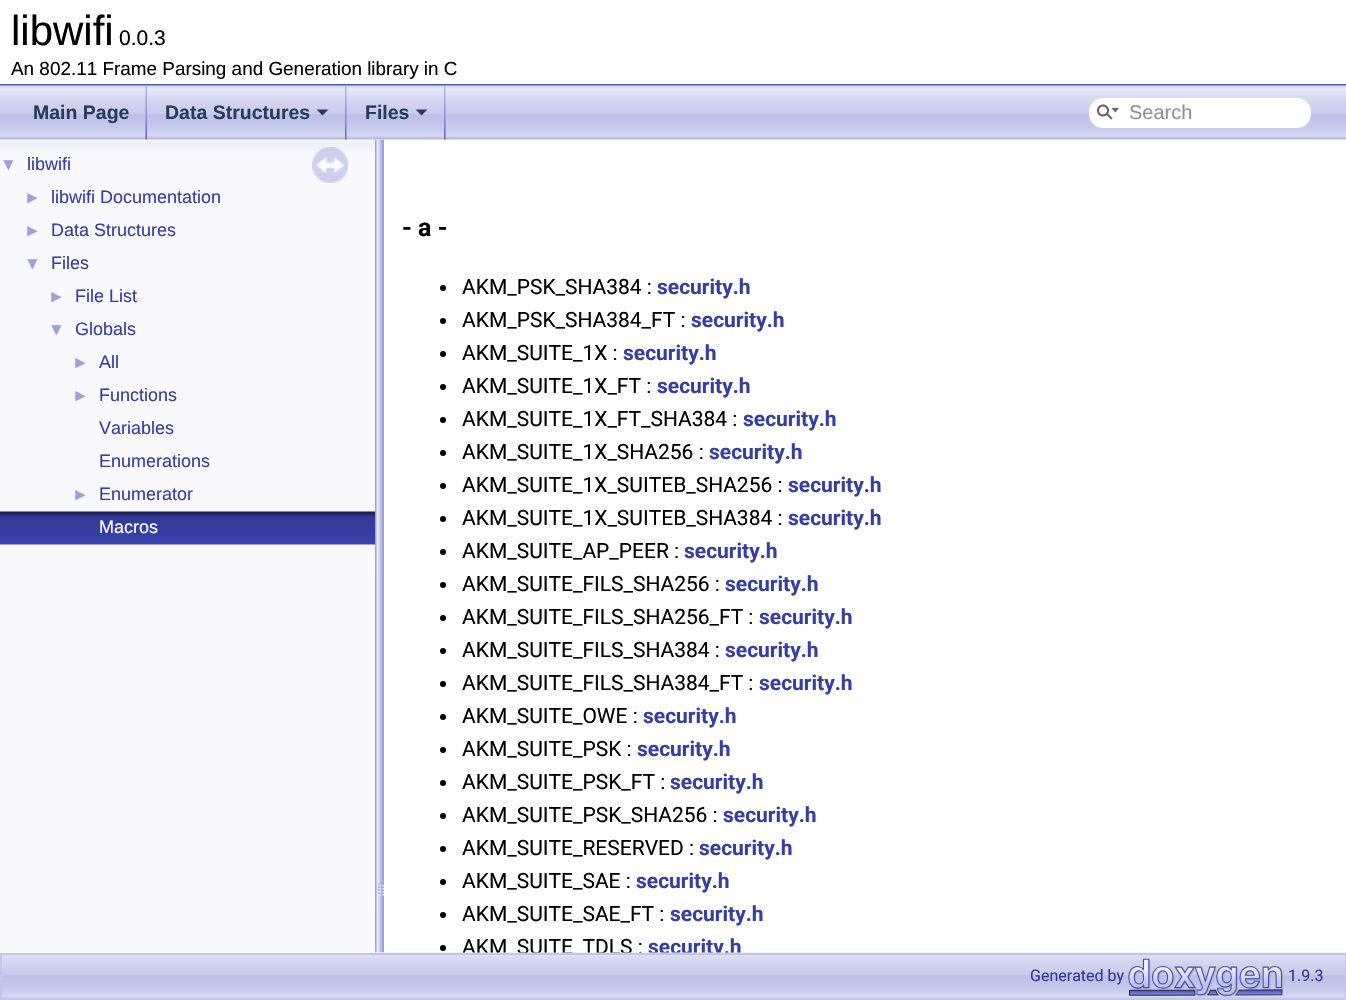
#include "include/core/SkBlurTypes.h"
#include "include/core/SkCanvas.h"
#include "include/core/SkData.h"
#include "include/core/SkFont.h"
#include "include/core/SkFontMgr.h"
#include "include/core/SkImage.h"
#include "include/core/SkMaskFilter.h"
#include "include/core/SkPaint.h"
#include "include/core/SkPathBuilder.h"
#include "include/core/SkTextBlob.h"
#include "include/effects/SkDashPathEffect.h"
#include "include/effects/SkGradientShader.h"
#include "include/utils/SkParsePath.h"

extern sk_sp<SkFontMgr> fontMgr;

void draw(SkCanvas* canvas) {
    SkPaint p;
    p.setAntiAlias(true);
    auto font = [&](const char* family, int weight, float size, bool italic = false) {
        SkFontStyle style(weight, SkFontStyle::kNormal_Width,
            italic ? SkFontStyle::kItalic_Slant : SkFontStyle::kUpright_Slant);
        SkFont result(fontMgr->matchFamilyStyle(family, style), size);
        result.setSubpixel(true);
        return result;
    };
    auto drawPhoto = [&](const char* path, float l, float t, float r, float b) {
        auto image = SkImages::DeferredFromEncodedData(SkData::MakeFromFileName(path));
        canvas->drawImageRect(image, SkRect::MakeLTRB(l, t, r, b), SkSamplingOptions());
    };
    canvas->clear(0xFFFFFFFF);
    p.setColor(0xFF5159C3);
    canvas->drawRect(SkRect::MakeLTRB(0, 84, 1346, 86), p);
    auto font1 = font("Liberation Sans", 400, 42);
    p.setColor(0xFF000000);
    canvas->drawString("libwifi", 11, 45, font1, p);
    auto font2 = font("Liberation Sans", 400, 21);
    canvas->drawString("0.0.3", 119, 45, font2, p);
    auto font3 = font("Liberation Sans", 400, 18.9f);
    canvas->drawString("An 802.11 Frame Parsing and Generation library in C", 11, 75, font3, p);
    auto font4 = font("Roboto", 400, 21);
    canvas->drawString("AKM_SUITE_TDLS :", 462, 954, font4, p);
    auto font5 = font("Roboto", 700, 21);
    p.setColor(0xFF373EA1);
    canvas->drawString("security.h", 648, 954, font5, p);
    drawPhoto("media/9.png", 2, 952, 1346, 999);
    drawPhoto("media/8.png", 375, 139, 384, 953);
    drawPhoto("media/1.png", 0, 85, 1346, 140);
    drawPhoto("media/2.png", 145, 85, 147, 140);
    auto font6 = font("Liberation Sans", 700, 19.5f);
    p.setColor(0xFF283A5D);
    canvas->drawString("Main Page", 33, 119, font6, p);
    drawPhoto("media/3.png", 345, 85, 347, 140);
    canvas->drawString("Data Structures", 165, 119, font6, p);
    canvas->drawPath(SkPathBuilder().moveTo(316.5f, 109.5f).lineTo(328.5f, 109.5f).lineTo(322.5f, 115.5f).close().detach(), p);
    drawPhoto("media/3.png", 444, 85, 446, 140);
    canvas->drawString("Files", 365, 119, font6, p);
    canvas->drawPath(SkPathBuilder().moveTo(415.5f, 109.5f).lineTo(427.5f, 109.5f).lineTo(421.5f, 115.5f).close().detach(), p);
    p.setColor(0xFFFFFFFF);
    canvas->drawRoundRect(SkRect::MakeLTRB(1089, 98, 1311, 128), 14, 14, p);
    drawPhoto("media/4.png", 1096, 104, 1119, 120);
    auto font7 = font("Liberation Sans", 400, 20);
    p.setColor(0xFF909090);
    canvas->drawString("Search", 1129, 119, font7, p);
    p.setColor(0xFFF9F9FD);
    canvas->drawRect(SkRect::MakeLTRB(0, 140, 375, 953), p);
    drawPhoto("media/5.png", 0, 141, 375, 151);
    auto font8 = font("Liberation Sans", 400, 17);
    p.setColor(0xFF9CA0DD);
    canvas->drawString("▼", 0, 170, font8, p);
    auto font9 = font("Liberation Sans", 400, 18);
    p.setColor(0xFF373EA1);
    canvas->drawString("libwifi", 27, 170, font9, p);
    p.setColor(0xFF9CA0DD);
    canvas->drawString("►", 24, 203, font8, p);
    p.setColor(0xFF373EA1);
    canvas->drawString("libwifi Documentation", 51, 203, font9, p);
    p.setColor(0xFF9CA0DD);
    canvas->drawString("►", 24, 236, font8, p);
    p.setColor(0xFF373EA1);
    canvas->drawString("Data Structures", 51, 236, font9, p);
    p.setColor(0xFF9CA0DD);
    canvas->drawString("▼", 24, 269, font8, p);
    p.setColor(0xFF373EA1);
    canvas->drawString("Files", 51, 269, font9, p);
    p.setColor(0xFF9CA0DD);
    canvas->drawString("►", 48, 302, font8, p);
    p.setColor(0xFF373EA1);
    canvas->drawString("File List", 75, 302, font9, p);
    p.setColor(0xFF9CA0DD);
    canvas->drawString("▼", 48, 335, font8, p);
    p.setColor(0xFF373EA1);
    canvas->drawString("Globals", 75, 335, font9, p);
    p.setColor(0xFF9CA0DD);
    canvas->drawString("►", 72, 368, font8, p);
    p.setColor(0xFF373EA1);
    canvas->drawString("All", 99, 368, font9, p);
    p.setColor(0xFF9CA0DD);
    canvas->drawString("►", 72, 401, font8, p);
    p.setColor(0xFF373EA1);
    {
        const struct { const char* s; float x, y; } items[] = {
            {"Functions", 99, 401},
            {"Variables", 99, 434},
            {"Enumerations", 99, 467},
        };
        for (auto [s, x, y] : items) {
            canvas->drawString(s, x, y, font9, p);
        }
    }
    p.setColor(0xFF9CA0DD);
    canvas->drawString("►", 72, 500, font8, p);
    p.setColor(0xFF373EA1);
    canvas->drawString("Enumerator", 99, 500, font9, p);
    drawPhoto("media/6.png", 0, 511, 375, 545);
    p.setColor(0xFFFFFFFF);
    canvas->drawString("Macros", 99, 533, font9, p);
    drawPhoto("media/7.png", 312, 147, 348, 183);
    auto font10 = font("Roboto", 700, 25);
    p.setColor(0xFF000000);
    canvas->drawString("- a -", 402, 236, font10, p);
    canvas->drawCircle(443, 288, 3, p);
    canvas->drawString("AKM_PSK_SHA384 :", 462, 294, font4, p);
    p.setColor(0xFF373EA1);
    canvas->drawString("security.h", 657, 294, font5, p);
    p.setColor(0xFF000000);
    canvas->drawCircle(443, 321, 3, p);
    canvas->drawString("AKM_PSK_SHA384_FT :", 462, 327, font4, p);
    p.setColor(0xFF373EA1);
    canvas->drawString("security.h", 691, 327, font5, p);
    p.setColor(0xFF000000);
    canvas->drawCircle(443, 354, 3, p);
    canvas->drawString("AKM_SUITE_1X :", 462, 360, font4, p);
    p.setColor(0xFF373EA1);
    canvas->drawString("security.h", 623, 360, font5, p);
    p.setColor(0xFF000000);
    canvas->drawCircle(443, 387, 3, p);
    canvas->drawString("AKM_SUITE_1X_FT :", 462, 393, font4, p);
    p.setColor(0xFF373EA1);
    canvas->drawString("security.h", 657, 393, font5, p);
    p.setColor(0xFF000000);
    canvas->drawCircle(443, 420, 3, p);
    canvas->drawString("AKM_SUITE_1X_FT_SHA384 :", 462, 426, font4, p);
    p.setColor(0xFF373EA1);
    canvas->drawString("security.h", 743, 426, font5, p);
    p.setColor(0xFF000000);
    canvas->drawCircle(443, 453, 3, p);
    canvas->drawString("AKM_SUITE_1X_SHA256 :", 462, 459, font4, p);
    p.setColor(0xFF373EA1);
    canvas->drawString("security.h", 709, 459, font5, p);
    p.setColor(0xFF000000);
    canvas->drawCircle(443, 486, 3, p);
    canvas->drawString("AKM_SUITE_1X_SUITEB_SHA256 :", 462, 492, font4, p);
    p.setColor(0xFF373EA1);
    canvas->drawString("security.h", 788, 492, font5, p);
    p.setColor(0xFF000000);
    canvas->drawCircle(443, 519, 3, p);
    canvas->drawString("AKM_SUITE_1X_SUITEB_SHA384 :", 462, 525, font4, p);
    p.setColor(0xFF373EA1);
    canvas->drawString("security.h", 788, 525, font5, p);
    p.setColor(0xFF000000);
    canvas->drawCircle(443, 552, 3, p);
    canvas->drawString("AKM_SUITE_AP_PEER :", 462, 558, font4, p);
    p.setColor(0xFF373EA1);
    canvas->drawString("security.h", 684, 558, font5, p);
    p.setColor(0xFF000000);
    canvas->drawCircle(443, 585, 3, p);
    canvas->drawString("AKM_SUITE_FILS_SHA256 :", 462, 591, font4, p);
    p.setColor(0xFF373EA1);
    canvas->drawString("security.h", 725, 591, font5, p);
    p.setColor(0xFF000000);
    canvas->drawCircle(443, 618, 3, p);
    canvas->drawString("AKM_SUITE_FILS_SHA256_FT :", 462, 624, font4, p);
    p.setColor(0xFF373EA1);
    canvas->drawString("security.h", 759, 624, font5, p);
    p.setColor(0xFF000000);
    canvas->drawCircle(443, 651, 3, p);
    canvas->drawString("AKM_SUITE_FILS_SHA384 :", 462, 657, font4, p);
    p.setColor(0xFF373EA1);
    canvas->drawString("security.h", 725, 657, font5, p);
    p.setColor(0xFF000000);
    canvas->drawCircle(443, 684, 3, p);
    canvas->drawString("AKM_SUITE_FILS_SHA384_FT :", 462, 690, font4, p);
    p.setColor(0xFF373EA1);
    canvas->drawString("security.h", 759, 690, font5, p);
    p.setColor(0xFF000000);
    canvas->drawCircle(443, 717, 3, p);
    canvas->drawString("AKM_SUITE_OWE :", 462, 723, font4, p);
    p.setColor(0xFF373EA1);
    canvas->drawString("security.h", 643, 723, font5, p);
    p.setColor(0xFF000000);
    canvas->drawCircle(443, 750, 3, p);
    canvas->drawString("AKM_SUITE_PSK :", 462, 756, font4, p);
    p.setColor(0xFF373EA1);
    canvas->drawString("security.h", 637, 756, font5, p);
    p.setColor(0xFF000000);
    canvas->drawCircle(443, 783, 3, p);
    canvas->drawString("AKM_SUITE_PSK_FT :", 462, 789, font4, p);
    p.setColor(0xFF373EA1);
    canvas->drawString("security.h", 670, 789, font5, p);
    p.setColor(0xFF000000);
    canvas->drawCircle(443, 816, 3, p);
    canvas->drawString("AKM_SUITE_PSK_SHA256 :", 462, 822, font4, p);
    p.setColor(0xFF373EA1);
    canvas->drawString("security.h", 723, 822, font5, p);
    p.setColor(0xFF000000);
    canvas->drawCircle(443, 849, 3, p);
    canvas->drawString("AKM_SUITE_RESERVED :", 462, 855, font4, p);
    p.setColor(0xFF373EA1);
    canvas->drawString("security.h", 699, 855, font5, p);
    p.setColor(0xFF000000);
    canvas->drawCircle(443, 882, 3, p);
    canvas->drawString("AKM_SUITE_SAE :", 462, 888, font4, p);
    p.setColor(0xFF373EA1);
    canvas->drawString("security.h", 636, 888, font5, p);
    p.setColor(0xFF000000);
    canvas->drawCircle(443, 915, 3, p);
    canvas->drawString("AKM_SUITE_SAE_FT :", 462, 921, font4, p);
    p.setColor(0xFF373EA1);
    canvas->drawString("security.h", 670, 921, font5, p);
    p.setColor(0xFF000000);
    canvas->drawCircle(443, 948, 3, p);
    p.setStyle(SkPaint::kStroke_Style);
    p.setStrokeWidth(2);
    p.setColor(0xFFC2C5EA);
    canvas->drawRect(SkRect::MakeLTRB(1, 954, 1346, 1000), p);
    auto font11 = font("Roboto", 400, 16);
    p.setStyle(SkPaint::kFill_Style);
    p.setColor(0xFF313790);
    canvas->drawString("Generated by", 1030, 981, font11, p);
    drawPhoto("media/10.png", 1128, 958, 1284, 998);
    canvas->drawString("1.9.3", 1288, 981, font11, p);
}
